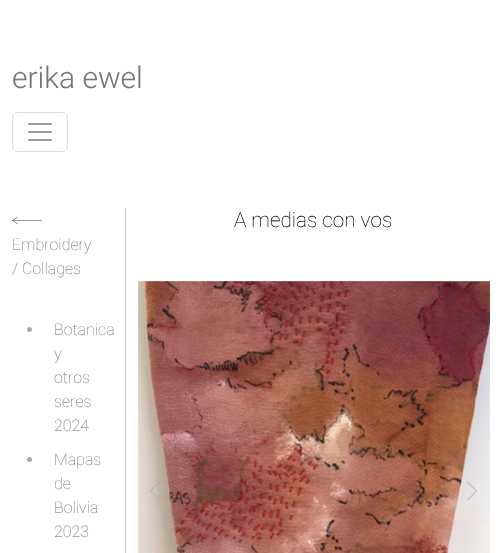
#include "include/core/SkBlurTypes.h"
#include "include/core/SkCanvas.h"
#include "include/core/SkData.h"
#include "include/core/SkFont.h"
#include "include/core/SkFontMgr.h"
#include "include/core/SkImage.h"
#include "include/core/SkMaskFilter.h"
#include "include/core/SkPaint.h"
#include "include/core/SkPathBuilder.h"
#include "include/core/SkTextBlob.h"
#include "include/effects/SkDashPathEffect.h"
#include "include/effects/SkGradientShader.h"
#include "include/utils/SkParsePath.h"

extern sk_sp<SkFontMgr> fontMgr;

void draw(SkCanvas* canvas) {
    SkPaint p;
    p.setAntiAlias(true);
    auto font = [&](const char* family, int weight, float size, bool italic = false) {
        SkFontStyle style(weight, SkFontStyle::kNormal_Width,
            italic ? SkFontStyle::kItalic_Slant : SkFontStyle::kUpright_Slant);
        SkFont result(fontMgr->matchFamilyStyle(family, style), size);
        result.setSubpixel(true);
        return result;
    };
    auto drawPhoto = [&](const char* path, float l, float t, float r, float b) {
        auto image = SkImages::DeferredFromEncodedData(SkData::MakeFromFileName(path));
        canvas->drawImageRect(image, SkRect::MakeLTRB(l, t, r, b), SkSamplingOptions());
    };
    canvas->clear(0xFFFFFFFF);
    auto font1 = font("Roboto", 300, 30);
    p.setColor(0xFF777777);
    canvas->drawString("erika ewel", 12, 88, font1, p);
    p.setStyle(SkPaint::kStroke_Style);
    p.setStrokeWidth(1);
    p.setColor(0xFFD9D9D9);
    canvas->drawRoundRect(SkRect::MakeLTRB(12.5f, 112.5f, 67.5f, 151.5f), 5.5f, 5.5f, p);
    drawPhoto("media/1.png", 28, 123, 52, 141);
    auto font2 = font("Roboto", 100, 20.75f);
    p.setStyle(SkPaint::kFill_Style);
    p.setColor(0xFF000000);
    canvas->drawString("A medias con vos", 234, 227, font2, p);
    drawPhoto("media/2.png", 138, 281, 490, 553);
    drawPhoto("media/3.png", 150, 481, 160, 501);
    drawPhoto("media/4.png", 467, 481, 477, 501);
    p.setColor(0xFFCCCCCC);
    canvas->drawRect(SkRect::MakeLTRB(125, 208, 126, 553), p);
    drawPhoto("media/5.png", 12, 217, 42, 224);
    auto font3 = font("Roboto", 100, 16);
    p.setColor(0xFF777777);
    canvas->drawString("Embroidery", 12, 250, font3, p);
    canvas->drawString("/ Collages", 12, 274, font3, p);
    p.setColor(0xFFAAAAAA);
    canvas->drawCircle(29.5f, 329.5f, 2.5f, p);
    p.setColor(0xFF777777);
    {
        const struct { const char* s; float x, y; } items[] = {
            {"Botanica", 54, 335},
            {"y", 54, 359},
            {"otros", 54, 383},
            {"seres", 54, 407},
            {"2024", 54, 431},
        };
        for (auto [s, x, y] : items) {
            canvas->drawString(s, x, y, font3, p);
        }
    }
    p.setColor(0xFFAAAAAA);
    canvas->drawCircle(29.5f, 459.5f, 2.5f, p);
    p.setColor(0xFF777777);
    {
        const struct { const char* s; float x, y; } items[] = {
            {"Mapas", 54, 465},
            {"de", 54, 489},
            {"Bolivia", 54, 513},
            {"2023", 54, 537},
        };
        for (auto [s, x, y] : items) {
            canvas->drawString(s, x, y, font3, p);
        }
    }
}
